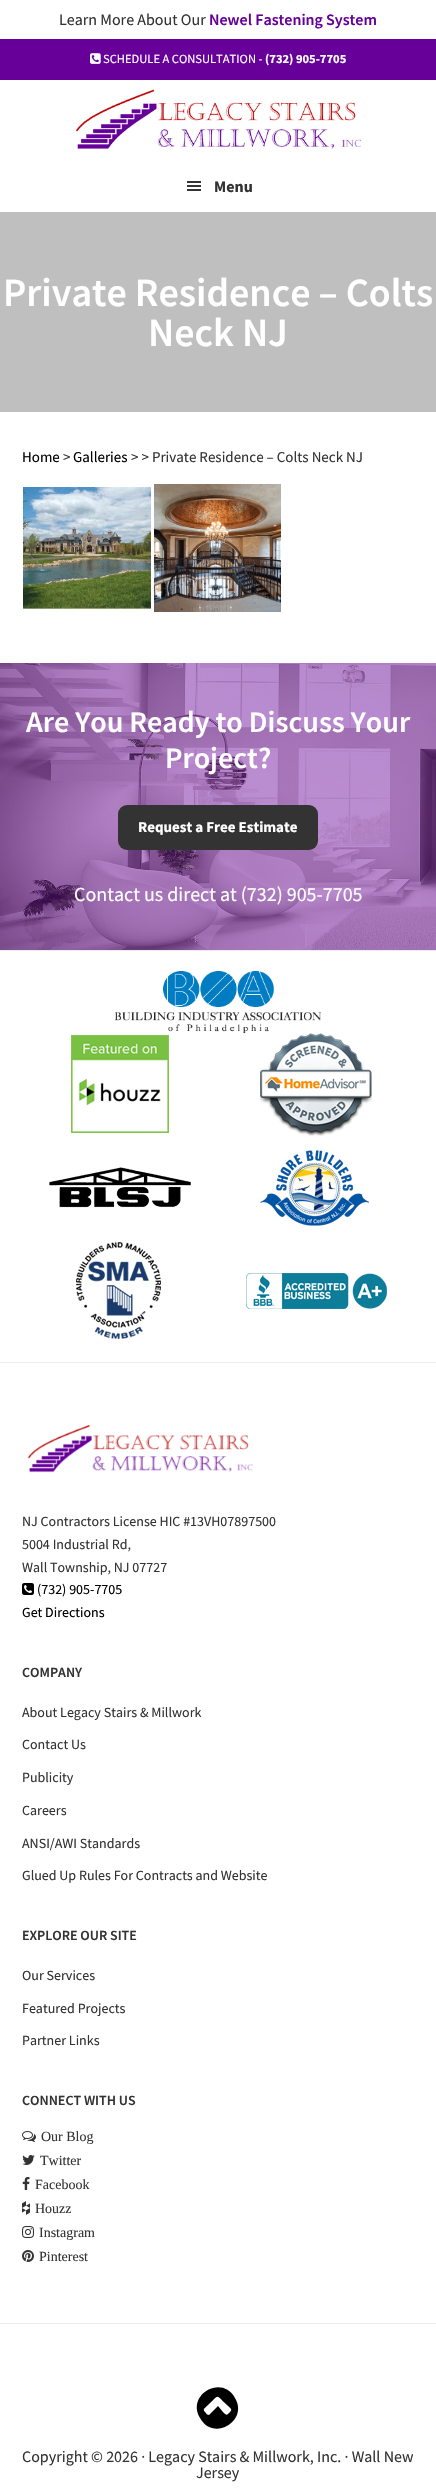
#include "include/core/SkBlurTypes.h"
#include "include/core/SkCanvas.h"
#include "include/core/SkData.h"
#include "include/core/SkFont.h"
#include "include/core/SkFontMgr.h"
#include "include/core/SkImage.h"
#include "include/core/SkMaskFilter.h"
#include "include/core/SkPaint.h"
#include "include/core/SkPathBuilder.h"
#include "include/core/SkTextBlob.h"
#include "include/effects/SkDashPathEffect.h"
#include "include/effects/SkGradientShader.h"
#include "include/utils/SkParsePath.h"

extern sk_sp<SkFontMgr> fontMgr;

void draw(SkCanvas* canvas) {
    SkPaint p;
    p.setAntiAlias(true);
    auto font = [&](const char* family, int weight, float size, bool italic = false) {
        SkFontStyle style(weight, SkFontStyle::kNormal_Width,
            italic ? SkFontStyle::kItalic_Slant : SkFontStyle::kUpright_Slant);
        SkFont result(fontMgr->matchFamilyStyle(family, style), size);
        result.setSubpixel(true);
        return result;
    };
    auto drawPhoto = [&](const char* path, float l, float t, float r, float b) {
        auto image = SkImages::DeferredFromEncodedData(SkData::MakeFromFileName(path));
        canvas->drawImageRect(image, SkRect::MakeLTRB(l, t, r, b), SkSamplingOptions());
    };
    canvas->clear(0xFFFFFFFF);
    auto font1 = font("Source Sans Pro", 400, 16);
    p.setColor(0xFF333333);
    canvas->drawString("Learn More About Our", 59, 25, font1, p);
    auto font2 = font("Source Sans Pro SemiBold", 600, 16);
    p.setColor(0xFF660099);
    canvas->drawString("Newel Fastening System", 209, 25, font2, p);
    canvas->drawRect(SkRect::MakeLTRB(0, 39, 436, 80), p);
    drawPhoto("media/1.png", 90, 53, 101, 64);
    auto font3 = font("Source Sans Pro", 400, 12.5f);
    p.setColor(0xFFFFFFFF);
    canvas->drawString("SCHEDULE A CONSULTATION -", 103, 63, font3, p);
    auto font4 = font("Source Sans Pro", 700, 12.5f);
    canvas->drawString("(732) 905-7705", 265, 63, font4, p);
    drawPhoto("media/2.png", 76, 89, 362, 149);
    drawPhoto("media/3.png", 187, 181, 201, 191);
    auto font5 = font("Source Sans Pro", 700, 16);
    p.setColor(0xFF333333);
    canvas->drawString("Menu", 214, 192, font5, p);
    p.setColor(0xFFBFBFBF);
    canvas->drawRect(SkRect::MakeLTRB(0, 212, 436, 412), p);
    auto font6 = font("Source Sans Pro SemiBold", 600, 40);
    p.setColor(0xFFFFFFFF);
    canvas->drawString("Private Residence – Colts", 3, 306, font6, p);
    canvas->drawString("Neck NJ", 148, 346, font6, p);
    auto font7 = font("Source Sans Pro", 400, 15);
    p.setColor(0xFF000000);
    canvas->drawString("Home", 22, 462, font7, p);
    p.setColor(0xFF333333);
    canvas->drawString(">", 63, 462, font7, p);
    p.setColor(0xFF000000);
    canvas->drawString("Galleries", 73, 462, font7, p);
    p.setColor(0xFF333333);
    canvas->drawString("> > Private Residence – Colts Neck NJ", 131, 462, font7, p);
    drawPhoto("media/4.png", 23, 487, 151, 609);
    drawPhoto("media/5.png", 154, 484, 281, 612);
    drawPhoto("media/6.png", 0, 663, 436, 950);
    auto font8 = font("Source Sans Pro SemiBold", 600, 30);
    p.setColor(0xFFFFFFFF);
    canvas->drawString("Are You Ready to Discuss Your", 26, 732, font8, p);
    canvas->drawString("Project?", 165, 768, font8, p);
    p.setColor(0xFF333333);
    canvas->drawRoundRect(SkRect::MakeLTRB(118, 805, 318, 850), 9, 9, p);
    auto font9 = font("Source Sans Pro", 700, 15);
    p.setColor(0xFFFFFFFF);
    canvas->drawString("Request a Free Estimate", 138, 832, font9, p);
    auto font10 = font("Source Sans Pro", 400, 20);
    canvas->drawString("Contact us direct at (732) 905-7705", 74, 901, font10, p);
    p.setColor(0xFFEEEEEE);
    canvas->drawRect(SkRect::MakeLTRB(0, 950, 436, 951), p);
    canvas->drawRect(SkRect::MakeLTRB(0, 1362, 436, 1363), p);
    drawPhoto("media/7.png", 115, 971, 321, 1033);
    drawPhoto("media/8.png", 71, 1035, 169, 1133);
    drawPhoto("media/9.png", 260, 1033, 372, 1136);
    drawPhoto("media/10.png", 49, 1167, 191, 1208);
    drawPhoto("media/11.png", 260, 1150, 369, 1226);
    drawPhoto("media/12.png", 76, 1242, 161, 1339);
    drawPhoto("media/13.png", 246, 1273, 387, 1309);
    drawPhoto("media/14.png", 27, 1424, 253, 1473);
    auto font11 = font("Source Sans Pro", 400, 14);
    p.setColor(0xFF333333);
    {
        const struct { const char* s; float x, y; } items[] = {
            {"NJ Contractors License HIC #13VH07897500", 22, 1526},
            {"5004 Industrial Rd,", 22, 1549},
            {"Wall Township, NJ 07727", 22, 1572},
        };
        for (auto [s, x, y] : items) {
            canvas->drawString(s, x, y, font11, p);
        }
    }
    drawPhoto("media/15.png", 22, 1583, 34, 1595);
    p.setColor(0xFF000000);
    canvas->drawString("(732) 905-7705", 37, 1594, font11, p);
    canvas->drawString("Get Directions", 22, 1617, font11, p);
    auto font12 = font("Source Sans Pro SemiBold", 600, 14);
    p.setColor(0xFF333333);
    canvas->drawString("COMPANY", 22, 1677, font12, p);
    {
        const struct { const char* s; float x, y; } items[] = {
            {"About Legacy Stairs & Millwork", 22, 1717},
            {"Contact Us", 22, 1749},
            {"Publicity", 22, 1782},
            {"Careers", 22, 1815},
            {"ANSI/AWI Standards", 22, 1848},
            {"Glued Up Rules For Contracts and Website", 22, 1880},
        };
        for (auto [s, x, y] : items) {
            canvas->drawString(s, x, y, font11, p);
        }
    }
    canvas->drawString("EXPLORE OUR SITE", 22, 1940, font12, p);
    {
        const struct { const char* s; float x, y; } items[] = {
            {"Our Services", 22, 1980},
            {"Featured Projects", 22, 2013},
            {"Partner Links", 22, 2045},
        };
        for (auto [s, x, y] : items) {
            canvas->drawString(s, x, y, font11, p);
        }
    }
    canvas->drawString("CONNECT WITH US", 22, 2105, font12, p);
    drawPhoto("media/16.png", 22, 2131, 36, 2142);
    auto font13 = font("Liberation Serif", 400, 14);
    canvas->drawString("Our Blog", 41, 2141, font13, p);
    drawPhoto("media/17.png", 22, 2155, 35, 2165);
    canvas->drawString("Twitter", 40, 2165, font13, p);
    drawPhoto("media/18.png", 22, 2177, 30, 2190);
    canvas->drawString("Facebook", 35, 2189, font13, p);
    drawPhoto("media/19.png", 22, 2201, 30, 2215);
    canvas->drawString("Houzz", 35, 2213, font13, p);
    drawPhoto("media/20.png", 22, 2226, 34, 2238);
    canvas->drawString("Instagram", 39, 2237, font13, p);
    drawPhoto("media/21.png", 22, 2250, 34, 2262);
    canvas->drawString("Pinterest", 39, 2261, font13, p);
    p.setColor(0xFFEEEEEE);
    canvas->drawRect(SkRect::MakeLTRB(0, 2323, 436, 2324), p);
    p.setColor(0xFF000000);
    canvas->drawPath(SkPathBuilder().moveTo(228, 2414).cubicTo(233, 2409, 232, 2410, 227, 2405).cubicTo(215, 2394, 220, 2394, 208, 2405).cubicTo(204, 2409, 202, 2409, 206, 2413).cubicTo(206, 2414, 208, 2415, 209, 2415).lineTo(218, 2406).lineTo(223, 2412).cubicTo(224, 2413, 226, 2416, 228, 2414).close().moveTo(235, 2398).cubicTo(249, 2421, 213, 2442, 200, 2418).cubicTo(186, 2395, 222, 2374, 235, 2398).close().detach(), p);
    p.setColor(0xFF333333);
    canvas->drawString("Copyright © 2026 · Legacy Stairs & Millwork, Inc. · Wall New", 22, 2462, font1, p);
    canvas->drawString("Jersey", 196, 2478, font1, p);
}
